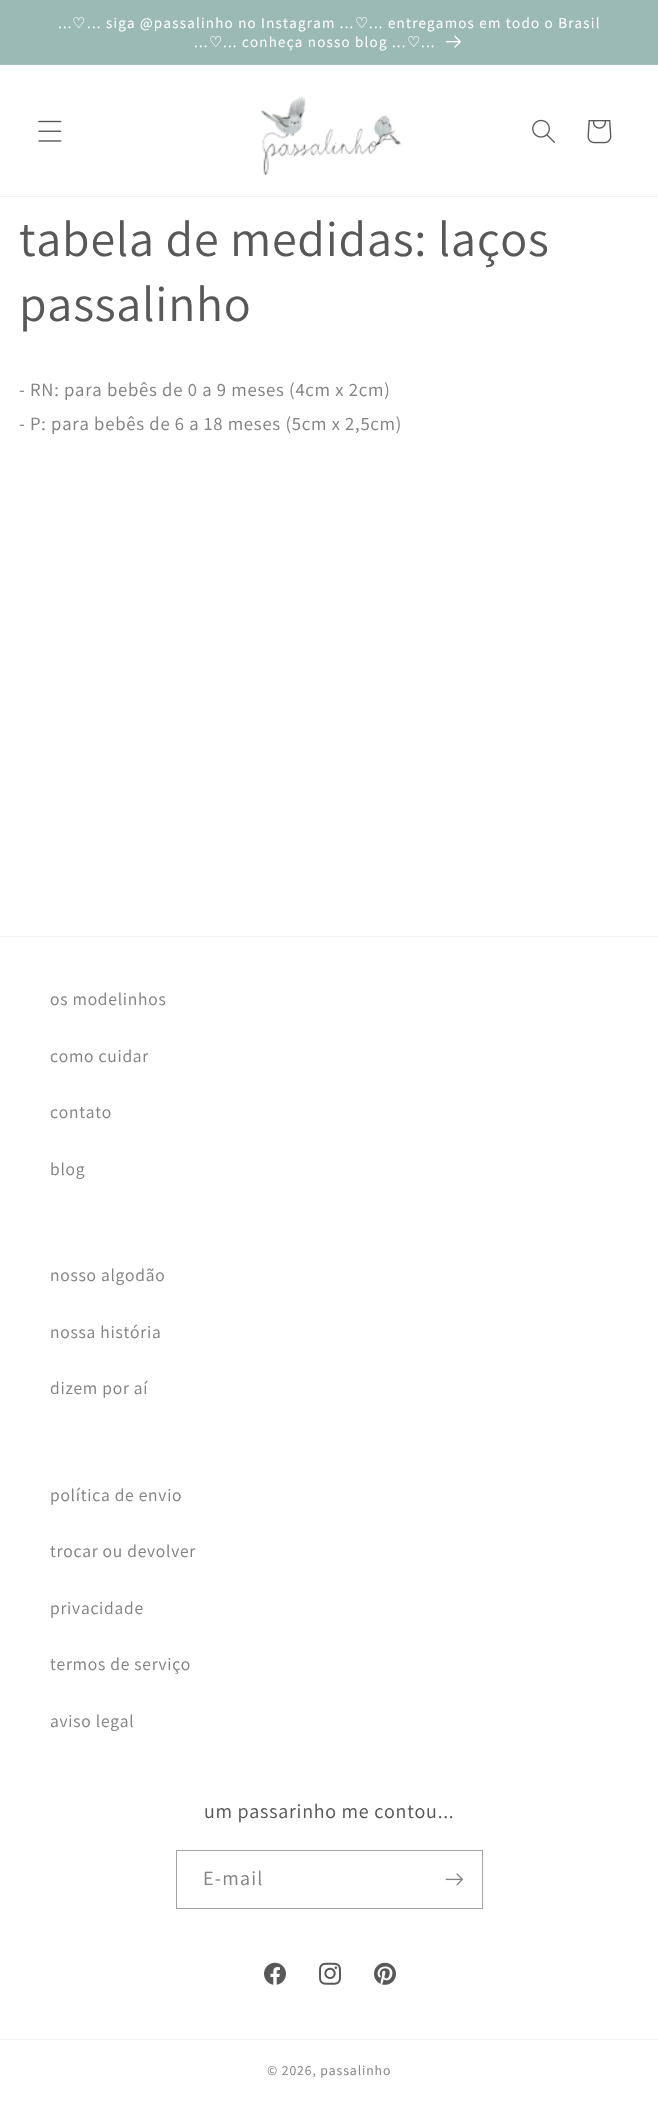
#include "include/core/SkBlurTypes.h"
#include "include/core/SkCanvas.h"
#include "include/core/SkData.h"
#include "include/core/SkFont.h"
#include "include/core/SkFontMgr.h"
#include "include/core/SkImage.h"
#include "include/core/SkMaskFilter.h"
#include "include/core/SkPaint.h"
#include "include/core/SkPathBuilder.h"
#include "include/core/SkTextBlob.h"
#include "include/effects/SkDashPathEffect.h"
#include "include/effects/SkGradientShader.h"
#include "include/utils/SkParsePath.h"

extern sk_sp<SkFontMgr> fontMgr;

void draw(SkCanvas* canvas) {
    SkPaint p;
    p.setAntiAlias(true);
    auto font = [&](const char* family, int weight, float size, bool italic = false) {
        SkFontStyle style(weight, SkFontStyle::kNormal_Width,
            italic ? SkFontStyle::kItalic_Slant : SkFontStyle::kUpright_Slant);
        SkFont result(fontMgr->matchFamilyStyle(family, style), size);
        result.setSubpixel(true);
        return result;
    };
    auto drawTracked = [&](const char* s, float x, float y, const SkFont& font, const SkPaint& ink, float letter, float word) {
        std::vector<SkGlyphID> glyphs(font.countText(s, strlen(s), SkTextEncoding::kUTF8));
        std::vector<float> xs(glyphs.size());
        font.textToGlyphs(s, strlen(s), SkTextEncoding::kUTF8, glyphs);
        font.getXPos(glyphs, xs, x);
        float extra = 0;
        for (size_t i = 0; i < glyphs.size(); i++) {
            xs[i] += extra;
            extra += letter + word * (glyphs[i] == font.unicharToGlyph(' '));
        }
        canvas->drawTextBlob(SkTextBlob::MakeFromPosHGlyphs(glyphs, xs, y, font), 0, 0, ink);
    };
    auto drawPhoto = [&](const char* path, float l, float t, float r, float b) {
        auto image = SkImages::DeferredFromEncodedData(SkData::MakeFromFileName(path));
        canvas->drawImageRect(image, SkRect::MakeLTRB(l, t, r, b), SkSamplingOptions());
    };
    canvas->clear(0xFFFFFFFF);
    p.setColor(0xFF9BB9B5);
    canvas->drawRect(SkRect::MakeLTRB(0, 0, 658, 64), p);
    p.setColor(0xFFA3BFBB);
    canvas->drawRect(SkRect::MakeLTRB(0, 64, 658, 65), p);
    auto font1 = font("Assistant", 400, 15);
    p.setColor(0xFFFFFFFF);
    drawTracked("...", 58, 28, font1, p, 1.25f, 0);
    auto font2 = font("DejaVu Sans", 400, 15);
    drawTracked("♡", 72, 28, font2, p, 1.25f, 0);
    drawTracked("... siga @passalinho no Instagram ...", 87, 28, font1, p, 1.25f, 0);
    drawTracked("♡", 355, 28, font2, p, 1.25f, 0);
    drawTracked("... entregamos em todo o Brasil", 369, 28, font1, p, 1.25f, 0);
    drawTracked("...", 194, 47, font1, p, 1.25f, 0);
    drawTracked("♡", 209, 47, font2, p, 1.25f, 0);
    drawTracked("... conheça nosso blog ...", 223, 47, font1, p, 1.25f, 0);
    drawTracked("♡", 407, 47, font2, p, 1.25f, 0);
    drawTracked("...", 421, 47, font1, p, 1.25f, 0);
    drawPhoto("media/1.png", 446, 35, 461, 48);
    p.setColor(0xFFF2F2F2);
    canvas->drawRect(SkRect::MakeLTRB(0, 196, 658, 197), p);
    drawPhoto("media/2.png", 38, 120, 62, 142);
    drawPhoto("media/3.png", 261, 96, 402, 175);
    drawPhoto("media/4.png", 532, 119, 555, 143);
    drawPhoto("media/5.png", 587, 120, 612, 144);
    auto font3 = font("Assistant", 400, 50);
    p.setColor(0xFF595858);
    drawTracked("tabela de medidas: laços", 19, 256, font3, p, 0.75f, 0);
    drawTracked("passalinho", 19, 321, font3, p, 0.75f, 0);
    auto font4 = font("Assistant", 400, 18.75f);
    p.setColor(0xFF838282);
    drawTracked("- RN: para bebês de 0 a 9 meses (4cm x 2cm)", 19, 396, font4, p, 0.75f, 0);
    drawTracked("- P: para bebês de 6 a 18 meses (5cm x 2,5cm)", 19, 430, font4, p, 0.75f, 0);
    p.setColor(0xFFF2F2F2);
    canvas->drawRect(SkRect::MakeLTRB(0, 936, 658, 937), p);
    auto font5 = font("Assistant", 400, 17.5f);
    p.setColor(0xFF838282);
    {
        const struct { const char* s; float x, y; } items[] = {
            {"os modelinhos", 50, 1005},
            {"como cuidar", 50, 1062},
            {"contato", 50, 1118},
            {"blog", 50, 1175},
            {"nosso algodão", 50, 1281},
            {"nossa história", 50, 1338},
            {"dizem por aí", 50, 1394},
            {"política de envio", 50, 1501},
            {"trocar ou devolver", 50, 1557},
            {"privacidade", 50, 1614},
            {"termos de serviço", 50, 1670},
            {"aviso legal", 50, 1727},
        };
        for (auto [s, x, y] : items) {
            drawTracked(s, x, y, font5, p, 0.75f, 0);
        }
    }
    auto font6 = font("Assistant", 400, 20);
    p.setColor(0xFF595858);
    drawTracked("um passarinho me contou...", 204, 1818, font6, p, 0.75f, 0);
    p.setStyle(SkPaint::kStroke_Style);
    p.setStrokeWidth(1);
    p.setColor(0xFFA4A3A3);
    canvas->drawRect(SkRect::MakeLTRB(176.5f, 1850.5f, 482.5f, 1908.5f), p);
    p.setStyle(SkPaint::kFill_Style);
    p.setColor(0xFF838282);
    drawTracked("E-mail", 203, 1885, font6, p, 1.25f, 0);
    drawPhoto("media/6.png", 445, 1873, 463, 1886);
    drawPhoto("media/7.png", 264, 1962, 286, 1985);
    drawPhoto("media/8.png", 319, 1962, 341, 1985);
    drawPhoto("media/9.png", 374, 1962, 396, 1985);
    p.setColor(0xFFF2F2F2);
    canvas->drawRect(SkRect::MakeLTRB(0, 2039, 658, 2040), p);
    auto font7 = font("Assistant", 400, 13.75f);
    p.setColor(0xFF838282);
    drawTracked("© 2026, passalinho", 267, 2075, font7, p, 0.9f, 0);
}
